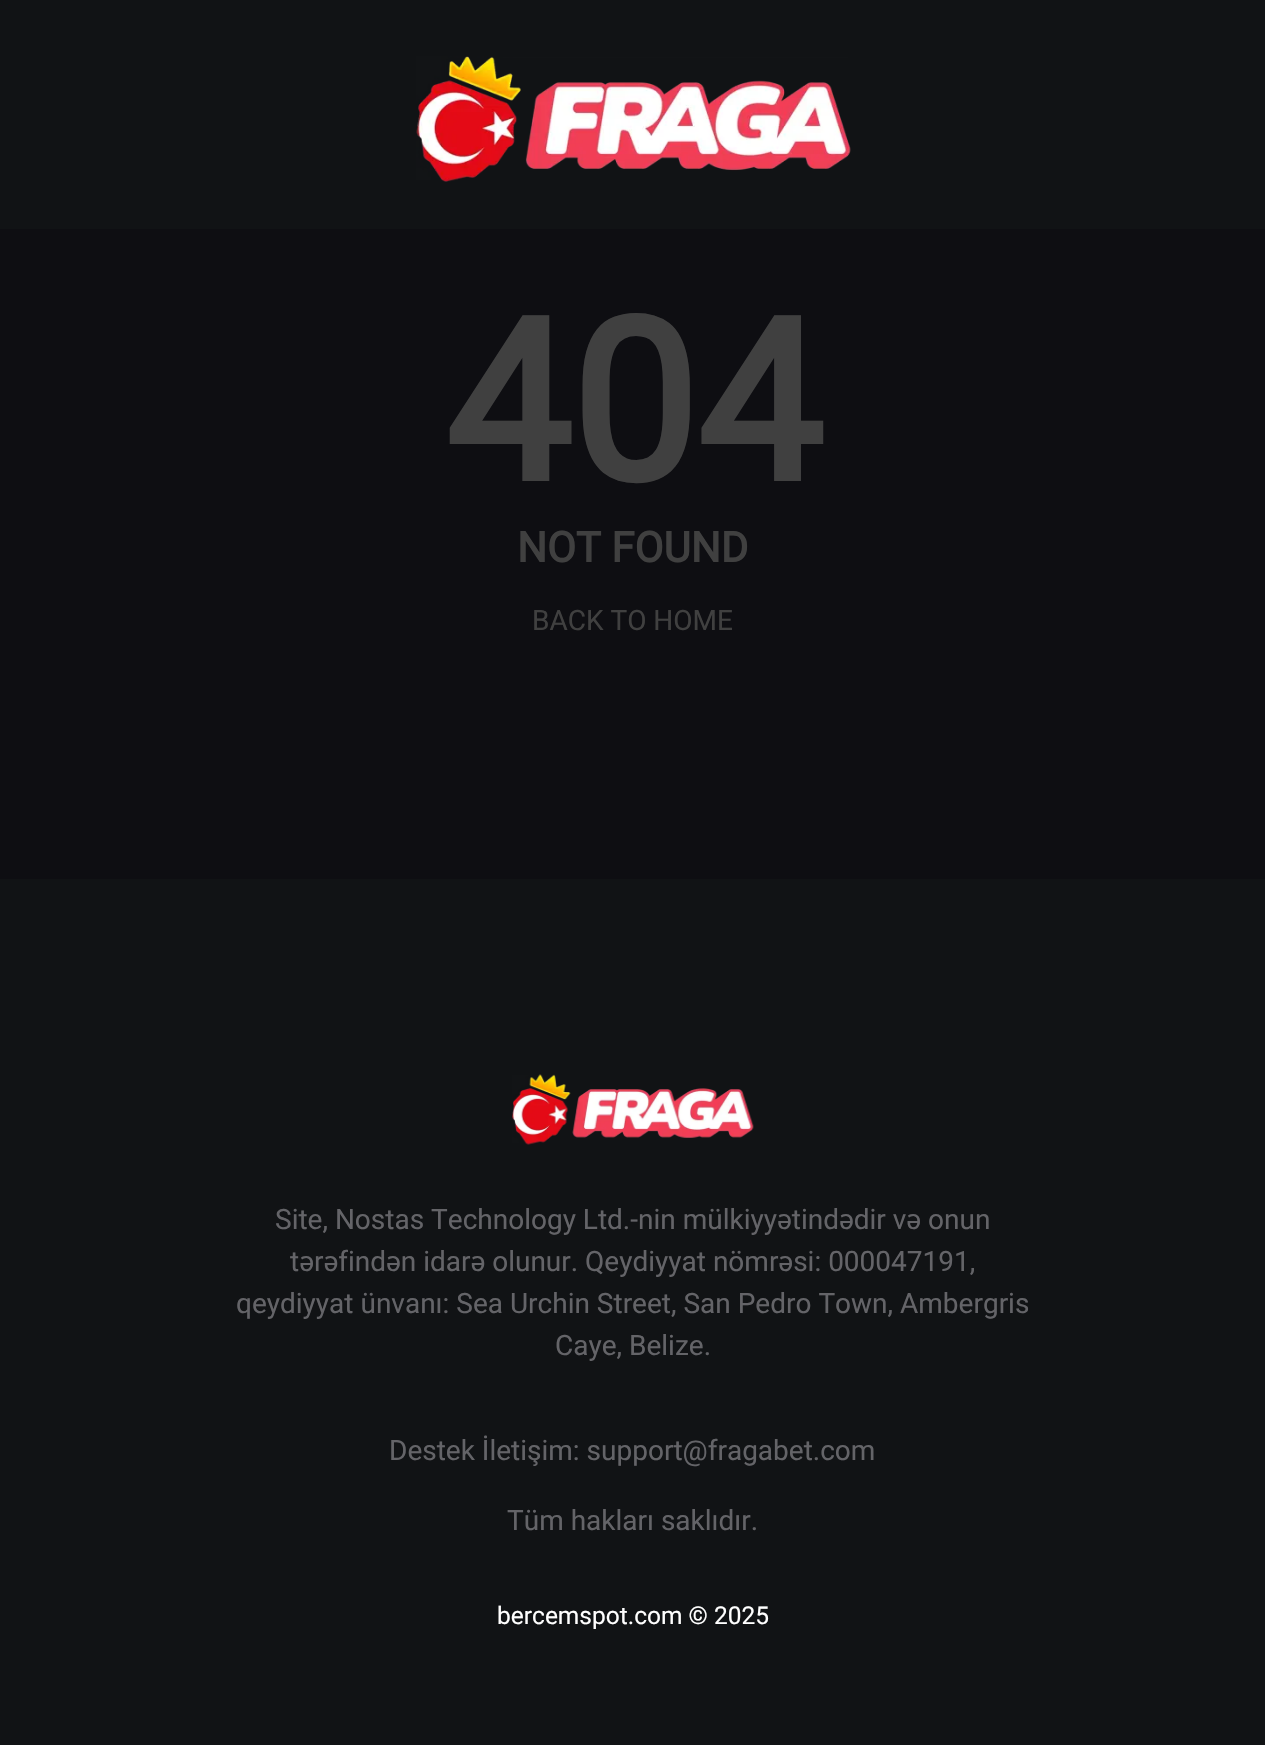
#include "include/core/SkBlurTypes.h"
#include "include/core/SkCanvas.h"
#include "include/core/SkData.h"
#include "include/core/SkFont.h"
#include "include/core/SkFontMgr.h"
#include "include/core/SkImage.h"
#include "include/core/SkMaskFilter.h"
#include "include/core/SkPaint.h"
#include "include/core/SkPathBuilder.h"
#include "include/core/SkTextBlob.h"
#include "include/effects/SkDashPathEffect.h"
#include "include/effects/SkGradientShader.h"
#include "include/utils/SkParsePath.h"

extern sk_sp<SkFontMgr> fontMgr;

void draw(SkCanvas* canvas) {
    SkPaint p;
    p.setAntiAlias(true);
    auto font = [&](const char* family, int weight, float size, bool italic = false) {
        SkFontStyle style(weight, SkFontStyle::kNormal_Width,
            italic ? SkFontStyle::kItalic_Slant : SkFontStyle::kUpright_Slant);
        SkFont result(fontMgr->matchFamilyStyle(family, style), size);
        result.setSubpixel(true);
        return result;
    };
    auto drawPhoto = [&](const char* path, float l, float t, float r, float b) {
        auto image = SkImages::DeferredFromEncodedData(SkData::MakeFromFileName(path));
        canvas->drawImageRect(image, SkRect::MakeLTRB(l, t, r, b), SkSamplingOptions());
    };
    canvas->clear(0xFF0E0E12);
    p.setColor(0xFF111315);
    canvas->drawRect(SkRect::MakeLTRB(0, 0, 1265, 229), p);
    drawPhoto("media/1.png", 416, 56, 851, 182);
    auto font1 = font("Roboto", 700, 224);
    p.setColor(0xFF404040);
    canvas->drawString("404", 444, 481, font1, p);
    auto font2 = font("Roboto", 700, 42);
    canvas->drawString("NOT FOUND", 517, 562, font2, p);
    auto font3 = font("Roboto", 400, 28);
    canvas->drawString("BACK TO HOME", 532, 630, font3, p);
    p.setColor(0xFF111315);
    canvas->drawRect(SkRect::MakeLTRB(0, 879, 1265, 1745), p);
    drawPhoto("media/2.png", 512, 1074, 754, 1145);
    p.setColor(0xFF646468);
    {
        const struct { const char* s; float x, y; } items[] = {
            {"Site, Nostas Technology Ltd.-nin mülkiyyətindədir və onun", 275, 1229},
            {"tərəfindən idarə olunur. Qeydiyyat nömrəsi: 000047191,", 290, 1271},
            {"qeydiyyat ünvanı: Sea Urchin Street, San Pedro Town, Ambergris", 236, 1313},
            {"Caye, Belize.", 555, 1355},
            {"Destek İletişim: support@fragabet.com", 389, 1460},
            {"Tüm hakları saklıdır.", 507, 1530},
        };
        for (auto [s, x, y] : items) {
            canvas->drawString(s, x, y, font3, p);
        }
    }
    auto font4 = font("Roboto", 400, 24.5f);
    p.setColor(0xFFFFFFFF);
    canvas->drawString("bercemspot.com © 2025", 497, 1624, font4, p);
}
